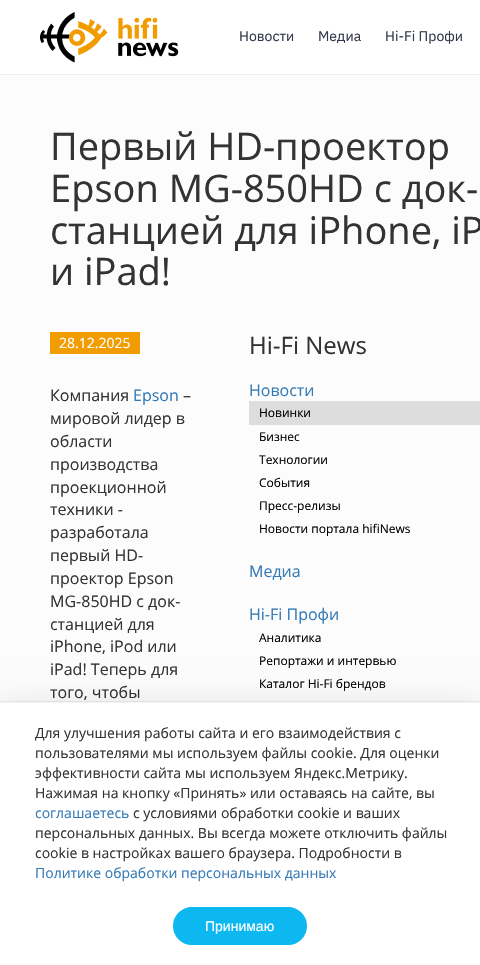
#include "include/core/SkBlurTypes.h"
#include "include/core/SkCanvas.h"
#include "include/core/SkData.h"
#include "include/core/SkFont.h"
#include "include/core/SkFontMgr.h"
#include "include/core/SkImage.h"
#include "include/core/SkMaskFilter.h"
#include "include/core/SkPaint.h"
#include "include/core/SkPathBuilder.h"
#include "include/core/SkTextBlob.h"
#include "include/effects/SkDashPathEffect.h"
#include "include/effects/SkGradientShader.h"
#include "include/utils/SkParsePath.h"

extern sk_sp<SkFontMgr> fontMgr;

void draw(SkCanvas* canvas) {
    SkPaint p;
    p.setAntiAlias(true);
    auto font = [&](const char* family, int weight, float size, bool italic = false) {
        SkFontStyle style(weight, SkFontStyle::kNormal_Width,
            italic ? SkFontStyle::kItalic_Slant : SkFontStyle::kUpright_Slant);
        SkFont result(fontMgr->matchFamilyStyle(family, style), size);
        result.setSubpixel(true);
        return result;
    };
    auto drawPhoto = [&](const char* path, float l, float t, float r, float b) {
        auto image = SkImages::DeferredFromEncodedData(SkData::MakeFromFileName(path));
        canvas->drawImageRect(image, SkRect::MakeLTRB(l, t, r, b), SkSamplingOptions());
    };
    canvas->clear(0xFFFCFCFC);
    p.setColor(0xFFFFFFFF);
    canvas->drawRect(SkRect::MakeLTRB(0, 0, 480, 74), p);
    p.setColor(0xFFEDF0F4);
    canvas->drawRect(SkRect::MakeLTRB(0, 74, 480, 75), p);
    drawPhoto("media/1.png", 40, 12, 179, 63);
    auto font1 = font("IBM Plex Sans", 400, 14);
    p.setColor(0xFF33374C);
    {
        const struct { const char* s; float x, y; } items[] = {
            {"Новости", 239, 41},
            {"Медиа", 318, 41},
            {"Hi-Fi Профи", 385, 41},
        };
        for (auto [s, x, y] : items) {
            canvas->drawString(s, x, y, font1, p);
        }
    }
    auto font2 = font("Open Sans", 400, 38);
    p.setColor(0xFF333333);
    {
        const struct { const char* s; float x, y; } items[] = {
            {"Первый HD-проектор", 50, 160},
            {"Epson MG-850HD c док-", 50, 202},
            {"станцией для iPhone, iP", 50, 244},
            {"и iPad!", 50, 285},
        };
        for (auto [s, x, y] : items) {
            canvas->drawString(s, x, y, font2, p);
        }
    }
    p.setColor(0xFFF19C01);
    canvas->drawRect(SkRect::MakeLTRB(50, 332, 140, 354), p);
    auto font3 = font("Open Sans", 400, 14);
    p.setColor(0xFFFFFFFF);
    canvas->drawString("28.12.2025", 59, 348, font3, p);
    auto font4 = font("Open Sans", 400, 16);
    p.setColor(0xFF333333);
    canvas->drawString("Компания", 50, 401, font4, p);
    p.setColor(0xFF337AB7);
    canvas->drawString("Epson", 133, 401, font4, p);
    p.setColor(0xFF333333);
    {
        const struct { const char* s; float x, y; } items[] = {
            {"–", 183, 401},
            {"мировой лидер в", 50, 424},
            {"области", 50, 447},
            {"производства", 50, 470},
            {"проекционной", 50, 493},
            {"техники -", 50, 515},
            {"разработала", 50, 538},
            {"первый HD-", 50, 561},
            {"проектор Epson", 50, 584},
            {"MG-850HD c док-", 50, 607},
            {"станцией для", 50, 630},
            {"iPhone, iPod или", 50, 652},
            {"iPad! Теперь для", 50, 675},
            {"того, чтобы", 50, 698},
        };
        for (auto [s, x, y] : items) {
            canvas->drawString(s, x, y, font4, p);
        }
    }
    auto font5 = font("Open Sans", 400, 24);
    canvas->drawString("Hi-Fi News", 249, 354, font5, p);
    p.setColor(0xFF337AB7);
    canvas->drawString("Новости", 249, 396, font4, p);
    p.setColor(0xFFDDDDDD);
    canvas->drawRect(SkRect::MakeLTRB(249, 401, 480, 425), p);
    auto font6 = font("Open Sans", 400, 12);
    p.setColor(0xFF000000);
    {
        const struct { const char* s; float x, y; } items[] = {
            {"Новинки", 259, 417},
            {"Бизнес", 259, 441},
            {"Технологии", 259, 464},
            {"События", 259, 487},
            {"Пресс-релизы", 259, 510},
            {"Новости портала hifiNews", 259, 533},
        };
        for (auto [s, x, y] : items) {
            canvas->drawString(s, x, y, font6, p);
        }
    }
    p.setColor(0xFF337AB7);
    canvas->drawString("Медиа", 249, 577, font4, p);
    canvas->drawString("Hi-Fi Профи", 249, 620, font4, p);
    p.setColor(0xFF000000);
    {
        const struct { const char* s; float x, y; } items[] = {
            {"Аналитика", 259, 642},
            {"Репортажи и интервью", 259, 665},
            {"Каталог Hi-Fi брендов", 259, 688},
        };
        for (auto [s, x, y] : items) {
            canvas->drawString(s, x, y, font6, p);
        }
    }
    p.setStyle(SkPaint::kStroke_Style);
    p.setStrokeWidth(1);
    p.setColor(0xFFEDEDED);
    canvas->drawRect(SkRect::MakeLTRB(-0.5f, 701.5f, 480.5f, 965.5f), p);
    p.setStyle(SkPaint::kFill_Style);
    p.setColor(0x29000000);
    p.setMaskFilter(SkMaskFilter::MakeBlur(kNormal_SkBlurStyle, 18));
    canvas->drawRect(SkRect::MakeLTRB(0, 712, 480, 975), p);
    p.setMaskFilter(nullptr);
    p.setColor(0xFFFFFFFF);
    canvas->drawRect(SkRect::MakeLTRB(0, 703, 480, 965), p);
    p.setColor(0xFFF1F3F6);
    canvas->drawRect(SkRect::MakeLTRB(0, 702, 480, 703), p);
    p.setColor(0xFF333333);
    {
        const struct { const char* s; float x, y; } items[] = {
            {"Для улучшения работы сайта и его взаимодействия с", 35, 738},
            {"пользователями мы используем файлы cookie. Для оценки", 35, 758},
            {"эффективности сайта мы используем Яндекс.Метрику.", 35, 778},
            {"Нажимая на кнопку «Принять» или оставаясь на сайте, вы", 35, 798},
        };
        for (auto [s, x, y] : items) {
            canvas->drawString(s, x, y, font3, p);
        }
    }
    p.setColor(0xFF337AB7);
    canvas->drawString("соглашаетесь", 35, 818, font3, p);
    p.setColor(0xFF333333);
    {
        const struct { const char* s; float x, y; } items[] = {
            {"с условиями обработки cookie и ваших", 133, 818},
            {"персональных данных. Вы всегда можете отключить файлы", 35, 838},
            {"cookie в настройках вашего браузера. Подробности в", 35, 858},
        };
        for (auto [s, x, y] : items) {
            canvas->drawString(s, x, y, font3, p);
        }
    }
    p.setColor(0xFF337AB7);
    canvas->drawString("Политике обработки персональных данных", 35, 878, font3, p);
    p.setColor(0xFF0DB8F1);
    canvas->drawRoundRect(SkRect::MakeLTRB(174, 908, 306, 944), 18, 18, p);
    p.setStyle(SkPaint::kStroke_Style);
    p.setStrokeWidth(2);
    canvas->drawRoundRect(SkRect::MakeLTRB(174, 908, 306, 944), 18, 18, p);
    auto font7 = font("Liberation Sans", 400, 14);
    p.setStyle(SkPaint::kFill_Style);
    p.setColor(0xFFFFFFFF);
    canvas->drawString("Принимаю", 205, 931, font7, p);
}
